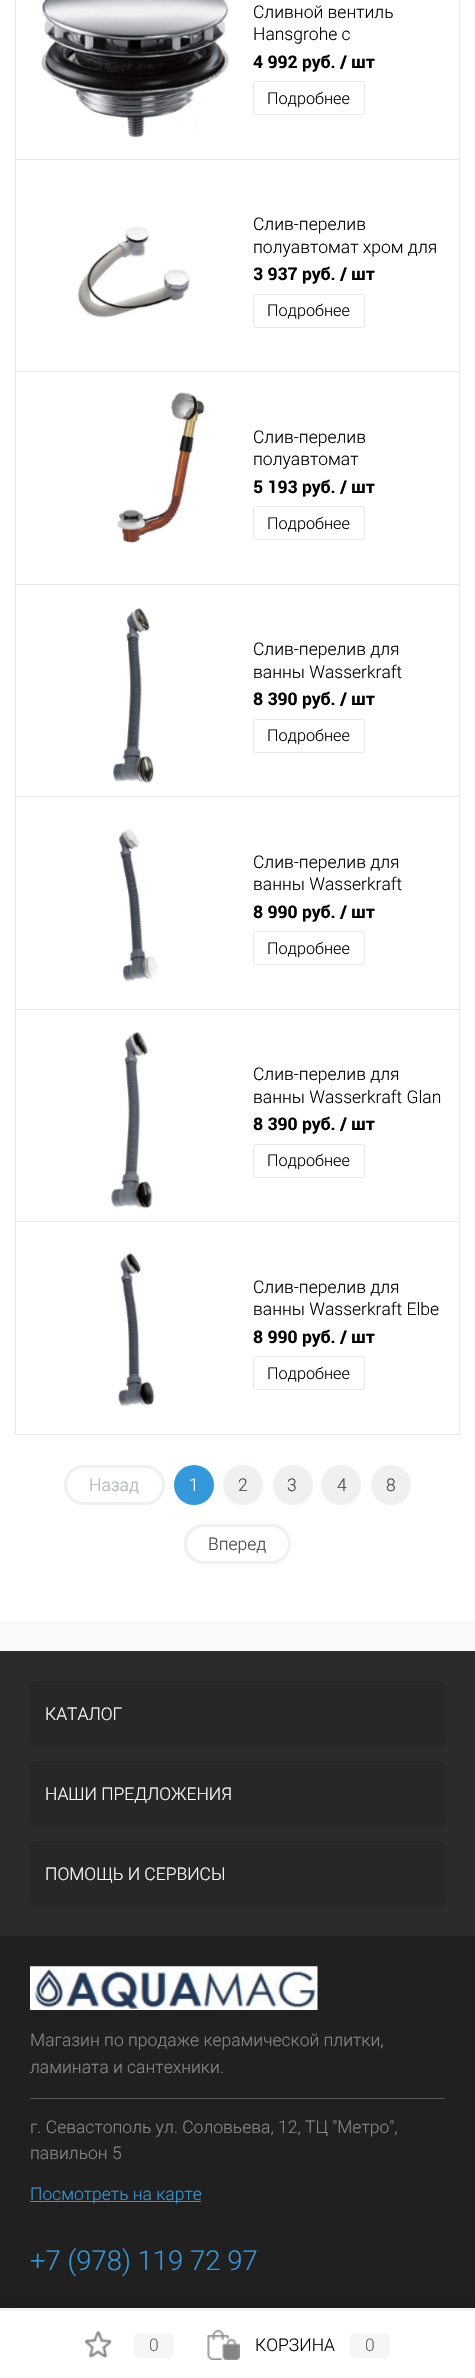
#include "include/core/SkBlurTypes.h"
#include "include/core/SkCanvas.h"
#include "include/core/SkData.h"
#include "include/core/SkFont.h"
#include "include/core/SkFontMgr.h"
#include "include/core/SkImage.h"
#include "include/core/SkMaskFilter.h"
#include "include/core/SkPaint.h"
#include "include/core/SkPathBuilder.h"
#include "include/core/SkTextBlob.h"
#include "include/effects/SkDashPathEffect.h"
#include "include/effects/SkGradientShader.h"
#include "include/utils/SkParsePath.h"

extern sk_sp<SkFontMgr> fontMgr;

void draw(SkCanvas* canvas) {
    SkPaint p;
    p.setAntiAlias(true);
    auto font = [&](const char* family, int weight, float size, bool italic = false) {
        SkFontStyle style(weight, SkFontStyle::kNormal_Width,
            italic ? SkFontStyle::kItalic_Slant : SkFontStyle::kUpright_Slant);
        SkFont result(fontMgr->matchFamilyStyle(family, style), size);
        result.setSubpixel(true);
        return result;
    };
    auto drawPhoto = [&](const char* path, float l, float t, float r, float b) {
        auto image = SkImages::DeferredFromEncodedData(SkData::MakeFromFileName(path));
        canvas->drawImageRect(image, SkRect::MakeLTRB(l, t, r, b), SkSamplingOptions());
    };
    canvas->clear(0xFFFFFFFF);
    {
        const struct { float l, t, r, b; SkColor color; } items[] = {
            {15, 0, 16, 1435, 0xFFE7E8EA},
            {459, 0, 460, 1435, 0xFFE7E8EA},
            {16, 159, 460, 160, 0xFFE7E8EA},
        };
        for (auto [l, t, r, b, color] : items) {
            p.setColor(color);
            canvas->drawRect(SkRect::MakeLTRB(l, t, r, b), p);
        }
    }
    drawPhoto("media/1.png", 41, 0, 229, 138);
    auto font1 = font("Roboto", 300, 17.5f);
    p.setColor(0xFF000000);
    canvas->drawString("Сливной вентиль", 253, 18, font1, p);
    canvas->drawString("Hansgrohe с", 253, 40, font1, p);
    auto font2 = font("Roboto", 700, 17.5f);
    canvas->drawString("4 992 руб. / шт", 253, 68, font2, p);
    p.setStyle(SkPaint::kStroke_Style);
    p.setStrokeWidth(1);
    p.setColor(0xFFE7E8EA);
    canvas->drawRoundRect(SkRect::MakeLTRB(253.5f, 81.5f, 364.5f, 114.5f), 2, 2, p);
    auto font3 = font("Roboto", 300, 16.25f);
    p.setStyle(SkPaint::kFill_Style);
    p.setColor(0xFF000000);
    canvas->drawString("Подробнее", 267, 104, font3, p);
    p.setColor(0xFFE7E8EA);
    canvas->drawRect(SkRect::MakeLTRB(16, 371, 460, 372), p);
    drawPhoto("media/2.png", 77, 227, 191, 318);
    p.setColor(0xFF000000);
    canvas->drawString("Слив-перелив", 253, 230, font1, p);
    canvas->drawString("полуавтомат хром для", 253, 253, font1, p);
    canvas->drawString("3 937 руб. / шт", 253, 280, font2, p);
    p.setStyle(SkPaint::kStroke_Style);
    p.setColor(0xFFE7E8EA);
    canvas->drawRoundRect(SkRect::MakeLTRB(253.5f, 294.5f, 364.5f, 327.5f), 2, 2, p);
    p.setStyle(SkPaint::kFill_Style);
    p.setColor(0xFF000000);
    canvas->drawString("Подробнее", 267, 316, font3, p);
    p.setColor(0xFFE7E8EA);
    canvas->drawRect(SkRect::MakeLTRB(16, 584, 460, 585), p);
    drawPhoto("media/3.png", 117, 392, 205, 544);
    p.setColor(0xFF000000);
    canvas->drawString("Слив-перелив", 253, 443, font1, p);
    canvas->drawString("полуавтомат", 253, 465, font1, p);
    canvas->drawString("5 193 руб. / шт", 253, 493, font2, p);
    p.setStyle(SkPaint::kStroke_Style);
    p.setColor(0xFFE7E8EA);
    canvas->drawRoundRect(SkRect::MakeLTRB(253.5f, 506.5f, 364.5f, 539.5f), 2, 2, p);
    p.setStyle(SkPaint::kFill_Style);
    p.setColor(0xFF000000);
    canvas->drawString("Подробнее", 267, 529, font3, p);
    p.setColor(0xFFE7E8EA);
    canvas->drawRect(SkRect::MakeLTRB(16, 796, 460, 797), p);
    drawPhoto("media/4.png", 113, 608, 154, 783);
    p.setColor(0xFF000000);
    canvas->drawString("Слив-перелив для", 253, 655, font1, p);
    canvas->drawString("ванны Wasserkraft", 253, 678, font1, p);
    canvas->drawString("8 390 руб. / шт", 253, 705, font2, p);
    p.setStyle(SkPaint::kStroke_Style);
    p.setColor(0xFFE7E8EA);
    canvas->drawRoundRect(SkRect::MakeLTRB(253.5f, 719.5f, 364.5f, 752.5f), 2, 2, p);
    p.setStyle(SkPaint::kFill_Style);
    p.setColor(0xFF000000);
    canvas->drawString("Подробнее", 267, 741, font3, p);
    p.setColor(0xFFE7E8EA);
    canvas->drawRect(SkRect::MakeLTRB(16, 1009, 460, 1010), p);
    drawPhoto("media/5.png", 119, 828, 158, 982);
    p.setColor(0xFF000000);
    canvas->drawString("Слив-перелив для", 253, 868, font1, p);
    canvas->drawString("ванны Wasserkraft", 253, 890, font1, p);
    canvas->drawString("8 990 руб. / шт", 253, 918, font2, p);
    p.setStyle(SkPaint::kStroke_Style);
    p.setColor(0xFFE7E8EA);
    canvas->drawRoundRect(SkRect::MakeLTRB(253.5f, 931.5f, 364.5f, 964.5f), 2, 2, p);
    p.setStyle(SkPaint::kFill_Style);
    p.setColor(0xFF000000);
    canvas->drawString("Подробнее", 267, 954, font3, p);
    p.setColor(0xFFE7E8EA);
    canvas->drawRect(SkRect::MakeLTRB(16, 1221, 460, 1222), p);
    drawPhoto("media/6.png", 110, 1032, 153, 1209);
    p.setColor(0xFF000000);
    canvas->drawString("Слив-перелив для", 253, 1080, font1, p);
    canvas->drawString("ванны Wasserkraft Glan", 253, 1103, font1, p);
    canvas->drawString("8 390 руб. / шт", 253, 1130, font2, p);
    p.setStyle(SkPaint::kStroke_Style);
    p.setColor(0xFFE7E8EA);
    canvas->drawRoundRect(SkRect::MakeLTRB(253.5f, 1144.5f, 364.5f, 1177.5f), 2, 2, p);
    p.setStyle(SkPaint::kFill_Style);
    p.setColor(0xFF000000);
    canvas->drawString("Подробнее", 267, 1166, font3, p);
    p.setColor(0xFFE7E8EA);
    canvas->drawRect(SkRect::MakeLTRB(16, 1434, 460, 1435), p);
    drawPhoto("media/7.png", 118, 1253, 155, 1407);
    p.setColor(0xFF000000);
    canvas->drawString("Слив-перелив для", 253, 1293, font1, p);
    canvas->drawString("ванны Wasserkraft Elbe", 253, 1315, font1, p);
    canvas->drawString("8 990 руб. / шт", 253, 1343, font2, p);
    p.setStyle(SkPaint::kStroke_Style);
    p.setColor(0xFFE7E8EA);
    canvas->drawRoundRect(SkRect::MakeLTRB(253.5f, 1356.5f, 364.5f, 1389.5f), 2, 2, p);
    p.setStyle(SkPaint::kFill_Style);
    p.setColor(0xFF000000);
    canvas->drawString("Подробнее", 267, 1379, font3, p);
    p.setStyle(SkPaint::kStroke_Style);
    p.setStrokeWidth(3);
    p.setColor(0xFFEFF0F1);
    canvas->drawRoundRect(SkRect::MakeLTRB(65.5f, 1466.5f, 163.5f, 1503.5f), 18.5f, 18.5f, p);
    p.setStyle(SkPaint::kFill_Style);
    p.setColor(0xFFAAB1B4);
    canvas->drawString("Назад", 89, 1491, font1, p);
    p.setColor(0xFF3498DB);
    canvas->drawCircle(194, 1485, 20, p);
    p.setColor(0xFFFFFFFF);
    canvas->drawString("1", 189, 1491, font1, p);
    p.setColor(0xFFEFF0F1);
    canvas->drawCircle(243, 1485, 20, p);
    p.setColor(0xFF444444);
    canvas->drawString("2", 238, 1491, font1, p);
    p.setColor(0xFFEFF0F1);
    canvas->drawCircle(293, 1485, 20, p);
    p.setColor(0xFF444444);
    canvas->drawString("3", 287, 1491, font1, p);
    p.setColor(0xFFEFF0F1);
    canvas->drawCircle(341, 1485, 20, p);
    p.setColor(0xFF444444);
    canvas->drawString("4", 337, 1491, font1, p);
    p.setColor(0xFFEFF0F1);
    canvas->drawCircle(391, 1485, 20, p);
    p.setColor(0xFF444444);
    canvas->drawString("8", 386, 1491, font1, p);
    p.setStyle(SkPaint::kStroke_Style);
    p.setColor(0xFFEFF0F1);
    canvas->drawRoundRect(SkRect::MakeLTRB(185.5f, 1525.5f, 289.5f, 1562.5f), 18.5f, 18.5f, p);
    p.setStyle(SkPaint::kFill_Style);
    p.setColor(0xFF444444);
    canvas->drawString("Вперед", 208, 1550, font1, p);
    p.setColor(0xFFF9F9F9);
    canvas->drawRect(SkRect::MakeLTRB(0, 1621, 475, 1651), p);
    p.setColor(0xFF2B2B2B);
    canvas->drawRect(SkRect::MakeLTRB(0, 1651, 475, 1936), p);
    p.setColor(0xFF272727);
    canvas->drawRoundRect(SkRect::MakeLTRB(30, 1681, 445, 1746), 5, 5, p);
    p.setColor(0xFFFFFFFF);
    canvas->drawString("КАТАЛОГ", 45, 1720, font1, p);
    p.setColor(0xFF272727);
    canvas->drawRoundRect(SkRect::MakeLTRB(30, 1761, 445, 1826), 5, 5, p);
    p.setColor(0xFFFFFFFF);
    canvas->drawString("НАШИ ПРЕДЛОЖЕНИЯ", 45, 1800, font1, p);
    p.setColor(0xFF272727);
    canvas->drawRoundRect(SkRect::MakeLTRB(30, 1841, 445, 1906), 5, 5, p);
    p.setColor(0xFFFFFFFF);
    canvas->drawString("ПОМОЩЬ И СЕРВИСЫ", 45, 1880, font1, p);
    p.setColor(0xFF202020);
    canvas->drawRect(SkRect::MakeLTRB(0, 1936, 475, 2308), p);
    drawPhoto("media/8.png", 30, 1966, 318, 2010);
    p.setColor(0xFF888888);
    canvas->drawString("Магазин по продаже керамической плитки,", 30, 2046, font1, p);
    canvas->drawString("ламината и сантехники.", 30, 2073, font1, p);
    p.setColor(0xFF575757);
    canvas->drawRect(SkRect::MakeLTRB(30, 2098, 445, 2099), p);
    p.setColor(0xFF888888);
    canvas->drawString("г. Севастополь ул. Соловьева, 12, ТЦ \"Метро\",", 30, 2133, font1, p);
    canvas->drawString("павильон 5", 30, 2159, font1, p);
    p.setColor(0xFF3498DB);
    canvas->drawRect(SkRect::MakeLTRB(30, 2201, 201, 2202), p);
    canvas->drawString("Посмотреть на карте", 30, 2200, font1, p);
    auto font4 = font("Roboto", 300, 27.5f);
    canvas->drawString("+7 (978) 119 72 97", 30, 2270, font4, p);
    p.setColor(0x40000000);
    p.setMaskFilter(SkMaskFilter::MakeBlur(kNormal_SkBlurStyle, 7.5f));
    canvas->drawRect(SkRect::MakeLTRB(1, 2309, 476, 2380), p);
    p.setMaskFilter(nullptr);
    p.setColor(0xFFFFFFFF);
    canvas->drawRect(SkRect::MakeLTRB(0, 2311, 475, 2378), p);
    p.setColor(0xFFF3F3F3);
    canvas->drawRect(SkRect::MakeLTRB(0, 2308, 475, 2311), p);
    drawPhoto("media/9.png", 85, 2331, 112, 2358);
    p.setColor(0xFFF6F6F6);
    canvas->drawRoundRect(SkRect::MakeLTRB(134, 2333, 174, 2358), 5, 5, p);
    p.setColor(0xFF666666);
    canvas->drawString("0", 149, 2351, font1, p);
    drawPhoto("media/10.png", 207, 2330, 240, 2360);
    p.setColor(0xFF000000);
    canvas->drawString("КОРЗИНА", 255, 2351, font1, p);
    p.setColor(0xFFF6F6F6);
    canvas->drawRoundRect(SkRect::MakeLTRB(350, 2333, 390, 2358), 5, 5, p);
    p.setColor(0xFF666666);
    canvas->drawString("0", 365, 2351, font1, p);
}
